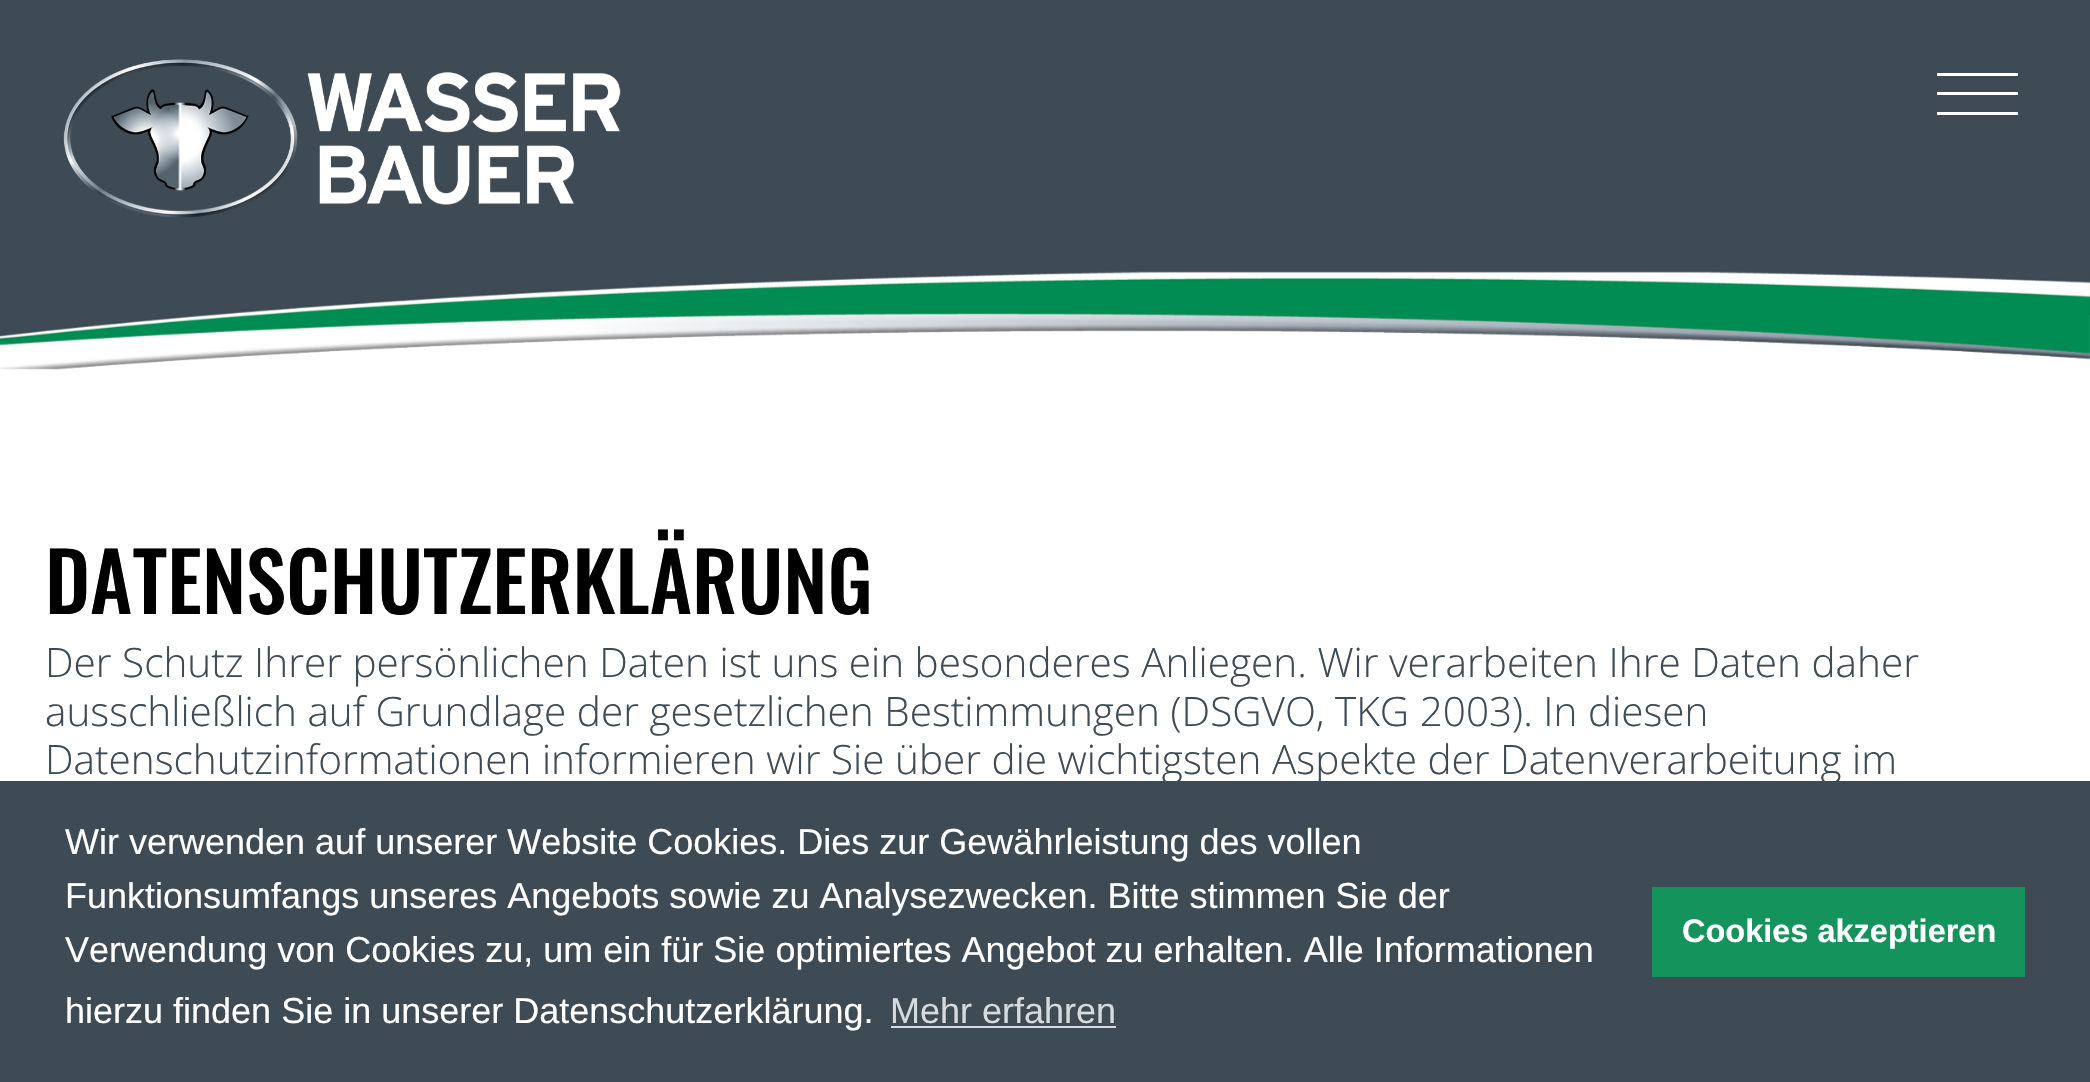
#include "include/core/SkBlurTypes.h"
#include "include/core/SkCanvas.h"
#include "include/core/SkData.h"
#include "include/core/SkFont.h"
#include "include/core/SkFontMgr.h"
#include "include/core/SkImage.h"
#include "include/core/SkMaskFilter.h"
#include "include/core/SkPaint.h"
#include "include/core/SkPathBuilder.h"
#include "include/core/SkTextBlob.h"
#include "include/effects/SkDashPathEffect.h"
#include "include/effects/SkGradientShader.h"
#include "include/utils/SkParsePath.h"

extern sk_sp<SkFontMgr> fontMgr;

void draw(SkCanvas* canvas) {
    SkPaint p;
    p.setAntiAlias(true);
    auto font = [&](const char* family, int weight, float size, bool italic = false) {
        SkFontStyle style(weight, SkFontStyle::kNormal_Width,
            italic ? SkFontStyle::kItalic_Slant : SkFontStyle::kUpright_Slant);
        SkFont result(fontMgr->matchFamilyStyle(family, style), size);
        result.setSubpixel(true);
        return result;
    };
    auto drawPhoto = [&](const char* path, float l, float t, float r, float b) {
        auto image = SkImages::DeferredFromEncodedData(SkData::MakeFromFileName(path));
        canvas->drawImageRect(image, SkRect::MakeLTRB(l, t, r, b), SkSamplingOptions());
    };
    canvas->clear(0xFFFFFFFF);
    p.setColor(0xFF3E4A54);
    canvas->drawRect(SkRect::MakeLTRB(0, 0, 2090, 315), p);
    drawPhoto("media/1.png", 63, 59, 621, 218);
    p.setColor(0xFFFFFFFF);
    canvas->drawPath(SkPathBuilder().moveTo(1937, 76).lineTo(2018, 76).lineTo(2018, 73).lineTo(1937, 73).detach(), p);
    canvas->drawPath(SkPathBuilder().moveTo(1937, 95).lineTo(2018, 95).lineTo(2018, 92).lineTo(1937, 92).detach(), p);
    canvas->drawPath(SkPathBuilder().moveTo(1937, 115).lineTo(2018, 115).lineTo(2018, 112).lineTo(1937, 112).detach(), p);
    drawPhoto("media/2.png", 0, 271, 2090, 370);
    auto font1 = font("Oswald", 500, 81);
    p.setColor(0xFF000000);
    canvas->drawString("DATENSCHUTZERKLÄRUNG", 45, 614, font1, p);
    auto font2 = font("Open Sans", 300, 40.5f);
    p.setColor(0xFF3E4A54);
    {
        const struct { const char* s; float x, y; } items[] = {
            {"Der Schutz Ihrer persönlichen Daten ist uns ein besonderes Anliegen. Wir verarbeiten Ihre Daten daher", 45, 677},
            {"ausschließlich auf Grundlage der gesetzlichen Bestimmungen (DSGVO, TKG 2003). In diesen", 45, 726},
            {"Datenschutzinformationen informieren wir Sie über die wichtigsten Aspekte der Datenverarbeitung im", 45, 774},
        };
        for (auto [s, x, y] : items) {
            canvas->drawString(s, x, y, font2, p);
        }
    }
    canvas->drawRect(SkRect::MakeLTRB(0, 781, 2090, 1082), p);
    auto font3 = font("Liberation Sans", 400, 36);
    p.setColor(0xFFFFFFFF);
    {
        const struct { const char* s; float x, y; } items[] = {
            {"Wir verwenden auf unserer Website Cookies. Dies zur Gewährleistung des vollen", 65, 854},
            {"Funktionsumfangs unseres Angebots sowie zu Analysezwecken. Bitte stimmen Sie der", 65, 908},
            {"Verwendung von Cookies zu, um ein für Sie optimiertes Angebot zu erhalten. Alle Informationen", 65, 962},
            {"hierzu finden Sie in unserer Datenschutzerklärung.", 65, 1023},
        };
        for (auto [s, x, y] : items) {
            canvas->drawString(s, x, y, font3, p);
        }
    }
    p.setColor(0xFFD8DBDD);
    canvas->drawString("Mehr erfahren", 890, 1023, font3, p);
    canvas->drawRect(SkRect::MakeLTRB(891, 1026, 1116, 1028), p);
    p.setColor(0xFF14935C);
    canvas->drawRect(SkRect::MakeLTRB(1652, 887, 2025, 977), p);
    auto font4 = font("Liberation Sans", 700, 32.5f);
    p.setColor(0xFFFFFFFF);
    canvas->drawString("Cookies akzeptieren", 1682, 942, font4, p);
}
